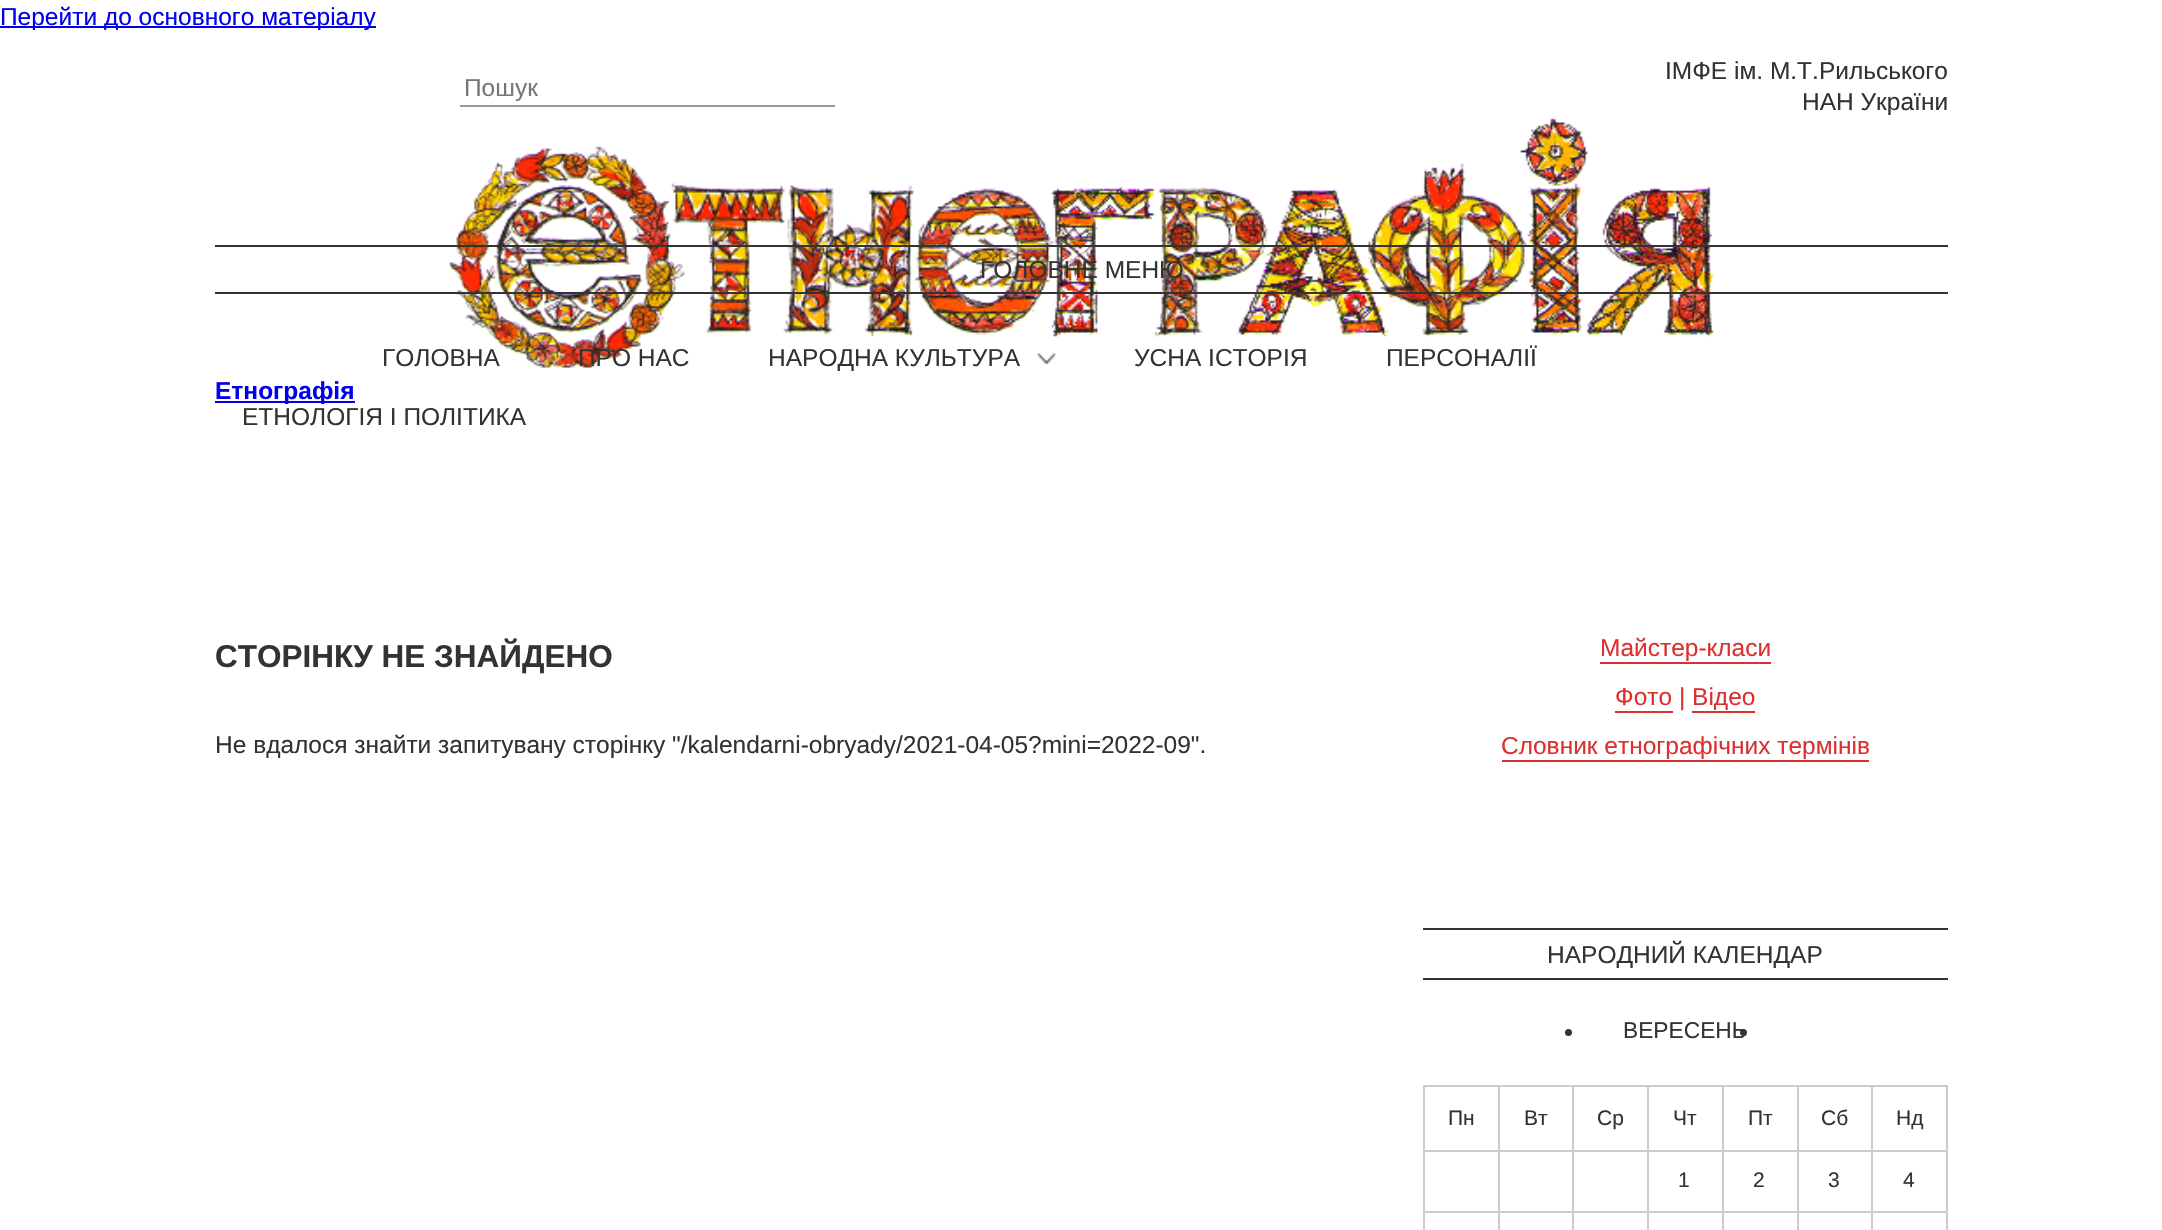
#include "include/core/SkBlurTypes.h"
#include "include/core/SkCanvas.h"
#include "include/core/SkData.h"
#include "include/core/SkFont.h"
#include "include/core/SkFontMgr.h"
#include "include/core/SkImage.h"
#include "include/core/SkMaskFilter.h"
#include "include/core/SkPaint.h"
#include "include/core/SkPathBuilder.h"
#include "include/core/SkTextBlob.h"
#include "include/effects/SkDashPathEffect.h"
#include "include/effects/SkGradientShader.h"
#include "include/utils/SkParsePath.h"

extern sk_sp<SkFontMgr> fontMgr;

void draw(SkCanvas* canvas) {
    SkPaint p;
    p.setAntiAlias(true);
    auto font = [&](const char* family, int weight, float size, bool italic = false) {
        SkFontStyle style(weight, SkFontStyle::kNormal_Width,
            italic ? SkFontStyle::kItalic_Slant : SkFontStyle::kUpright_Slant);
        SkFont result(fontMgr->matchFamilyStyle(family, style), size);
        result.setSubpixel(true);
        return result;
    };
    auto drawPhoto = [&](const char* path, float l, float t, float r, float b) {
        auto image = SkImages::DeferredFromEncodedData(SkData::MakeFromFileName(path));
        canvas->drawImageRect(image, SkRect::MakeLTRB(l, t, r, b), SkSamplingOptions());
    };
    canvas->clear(0xFFFFFFFF);
    p.setColor(0xFF0000EE);
    canvas->drawRect(SkRect::MakeLTRB(0, 26, 376, 28), p);
    auto font1 = font("Liberation Sans", 400, 24.5f);
    canvas->drawString("Перейти до основного матеріалу", 0, 25, font1, p);
    p.setColor(0xFF777777);
    canvas->drawString("Пошук", 464, 96, font1, p);
    p.setColor(0xFF999999);
    canvas->drawRect(SkRect::MakeLTRB(460, 105, 835, 107), p);
    p.setColor(0xFF333333);
    canvas->drawString("ІМФЕ ім. М.Т.Рильського", 1665, 79, font1, p);
    canvas->drawString("НАН України", 1802, 110, font1, p);
    drawPhoto("media/2.png", 449, 118, 1714, 368);
    canvas->drawRect(SkRect::MakeLTRB(215, 245, 1948, 247), p);
    canvas->drawRect(SkRect::MakeLTRB(215, 292, 1948, 294), p);
    {
        const struct { const char* s; float x, y; } items[] = {
            {"ГОЛОВНЕ МЕНЮ", 980, 278},
            {"ГОЛОВНА", 382, 366},
            {"ПРО НАС", 578, 366},
        };
        for (auto [s, x, y] : items) {
            canvas->drawString(s, x, y, font1, p);
        }
    }
    drawPhoto("media/1.png", 1037, 353, 1056, 364);
    {
        const struct { const char* s; float x, y; } items[] = {
            {"НАРОДНА КУЛЬТУРА", 768, 366},
            {"УСНА ІСТОРІЯ", 1134, 366},
            {"ПЕРСОНАЛІЇ", 1386, 366},
            {"ЕТНОЛОГІЯ І ПОЛІТИКА", 242, 425},
        };
        for (auto [s, x, y] : items) {
            canvas->drawString(s, x, y, font1, p);
        }
    }
    p.setColor(0xFF0000EE);
    canvas->drawRect(SkRect::MakeLTRB(215, 401, 355, 403), p);
    auto font2 = font("Liberation Sans", 700, 24.5f);
    canvas->drawString("Етнографія", 215, 399, font2, p);
    auto font3 = font("Liberation Sans", 700, 31.5f);
    p.setColor(0xFF333333);
    canvas->drawString("СТОРІНКУ НЕ ЗНАЙДЕНО", 215, 667, font3, p);
    canvas->drawString("Не вдалося знайти запитувану сторінку \"/kalendarni-obryady/2021-04-05?mini=2022-09\".", 215, 753, font1, p);
    p.setColor(0xFFDB3030);
    canvas->drawString("Майстер-класи", 1600, 656, font1, p);
    canvas->drawRect(SkRect::MakeLTRB(1600, 662, 1771, 664), p);
    canvas->drawString("Фото | Відео", 1615, 705, font1, p);
    canvas->drawRect(SkRect::MakeLTRB(1615, 711, 1673, 713), p);
    canvas->drawRect(SkRect::MakeLTRB(1692, 711, 1755, 713), p);
    canvas->drawString("Словник етнографічних термінів", 1501, 754, font1, p);
    {
        const struct { float l, t, r, b; SkColor color; } items[] = {
            {1502, 760, 1869, 762, 0xFFDB3030},
            {1423, 928, 1948, 930, 0xFF333333},
            {1423, 978, 1948, 980, 0xFF333333},
        };
        for (auto [l, t, r, b, color] : items) {
            p.setColor(color);
            canvas->drawRect(SkRect::MakeLTRB(l, t, r, b), p);
        }
    }
    canvas->drawString("НАРОДНИЙ КАЛЕНДАР", 1547, 963, font1, p);
    auto font4 = font("Liberation Sans", 400, 22.75f);
    canvas->drawString("ВЕРЕСЕНЬ", 1623, 1038, font4, p);
    canvas->drawCircle(1568.5f, 1032.5f, 3.5f, p);
    canvas->drawCircle(1743.5f, 1032.5f, 3.5f, p);
    {
        const struct { float l, t, r, b; SkColor color; } items[] = {
            {1423, 1085, 1948, 1087, 0xFFCCCCCC},
            {1946, 1085, 1948, 1230, 0xFFCCCCCC},
            {1423, 1085, 1425, 1230, 0xFFCCCCCC},
        };
        for (auto [l, t, r, b, color] : items) {
            p.setColor(color);
            canvas->drawRect(SkRect::MakeLTRB(l, t, r, b), p);
        }
    }
    auto font5 = font("Liberation Sans", 400, 21);
    p.setColor(0xFF333333);
    canvas->drawString("Пн", 1448, 1125, font5, p);
    {
        const struct { float l, t, r, b; SkColor color; } items[] = {
            {1871, 1150, 1948, 1152, 0xFFCCCCCC},
            {1871, 1211, 1948, 1213, 0xFFCCCCCC},
            {1871, 1211, 1873, 1230, 0xFFCCCCCC},
            {1797, 1211, 1873, 1213, 0xFFCCCCCC},
            {1871, 1150, 1873, 1213, 0xFFCCCCCC},
            {1797, 1150, 1873, 1152, 0xFFCCCCCC},
            {1797, 1211, 1799, 1230, 0xFFCCCCCC},
            {1722, 1211, 1799, 1213, 0xFFCCCCCC},
            {1797, 1150, 1799, 1213, 0xFFCCCCCC},
            {1722, 1150, 1799, 1152, 0xFFCCCCCC},
            {1722, 1211, 1724, 1230, 0xFFCCCCCC},
            {1647, 1211, 1724, 1213, 0xFFCCCCCC},
            {1722, 1150, 1724, 1213, 0xFFCCCCCC},
            {1647, 1150, 1724, 1152, 0xFFCCCCCC},
            {1647, 1211, 1649, 1230, 0xFFCCCCCC},
            {1572, 1211, 1649, 1213, 0xFFCCCCCC},
            {1647, 1150, 1649, 1213, 0xFFCCCCCC},
            {1572, 1150, 1649, 1152, 0xFFCCCCCC},
            {1572, 1211, 1574, 1230, 0xFFCCCCCC},
            {1498, 1211, 1573, 1213, 0xFFCCCCCC},
            {1572, 1150, 1574, 1213, 0xFFCCCCCC},
            {1498, 1150, 1573, 1152, 0xFFCCCCCC},
            {1498, 1211, 1500, 1230, 0xFFCCCCCC},
            {1423, 1211, 1500, 1213, 0xFFCCCCCC},
            {1498, 1150, 1500, 1213, 0xFFCCCCCC},
            {1423, 1150, 1500, 1152, 0xFFCCCCCC},
            {1498, 1085, 1500, 1152, 0xFFCCCCCC},
        };
        for (auto [l, t, r, b, color] : items) {
            p.setColor(color);
            canvas->drawRect(SkRect::MakeLTRB(l, t, r, b), p);
        }
    }
    p.setColor(0xFF333333);
    canvas->drawString("Вт", 1524, 1125, font5, p);
    p.setColor(0xFFCCCCCC);
    canvas->drawRect(SkRect::MakeLTRB(1572, 1085, 1574, 1152), p);
    p.setColor(0xFF333333);
    canvas->drawString("Ср", 1597, 1125, font5, p);
    p.setColor(0xFFCCCCCC);
    canvas->drawRect(SkRect::MakeLTRB(1647, 1085, 1649, 1152), p);
    p.setColor(0xFF333333);
    canvas->drawString("Чт", 1673, 1125, font5, p);
    p.setColor(0xFFCCCCCC);
    canvas->drawRect(SkRect::MakeLTRB(1722, 1085, 1724, 1152), p);
    p.setColor(0xFF333333);
    canvas->drawString("Пт", 1748, 1125, font5, p);
    p.setColor(0xFFCCCCCC);
    canvas->drawRect(SkRect::MakeLTRB(1797, 1085, 1799, 1152), p);
    p.setColor(0xFF333333);
    canvas->drawString("Сб", 1821, 1125, font5, p);
    p.setColor(0xFFCCCCCC);
    canvas->drawRect(SkRect::MakeLTRB(1871, 1085, 1873, 1152), p);
    p.setColor(0xFF333333);
    {
        const struct { const char* s; float x, y; } items[] = {
            {"Нд", 1896, 1125},
            {"1", 1678, 1187},
            {"2", 1753, 1187},
            {"3", 1828, 1187},
            {"4", 1903, 1187},
        };
        for (auto [s, x, y] : items) {
            canvas->drawString(s, x, y, font5, p);
        }
    }
}
